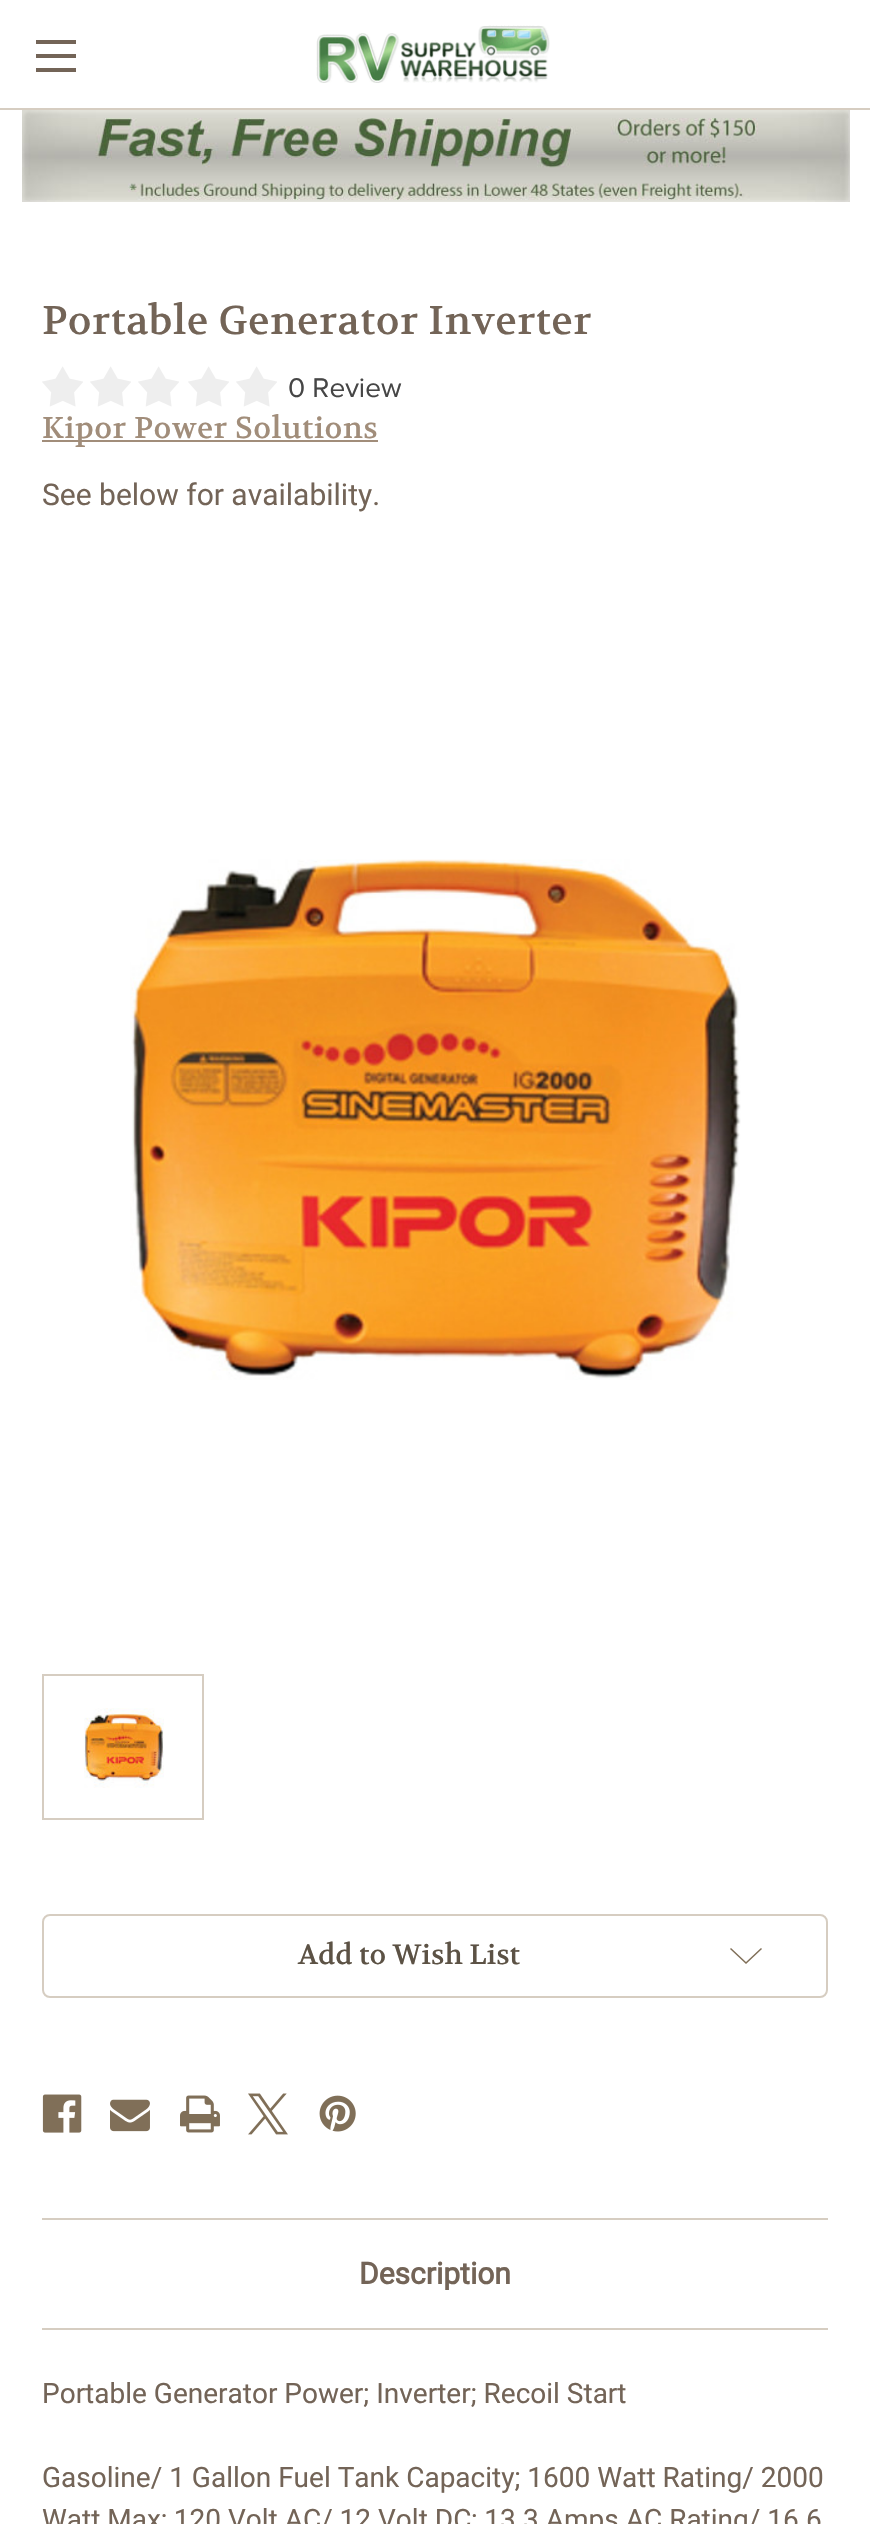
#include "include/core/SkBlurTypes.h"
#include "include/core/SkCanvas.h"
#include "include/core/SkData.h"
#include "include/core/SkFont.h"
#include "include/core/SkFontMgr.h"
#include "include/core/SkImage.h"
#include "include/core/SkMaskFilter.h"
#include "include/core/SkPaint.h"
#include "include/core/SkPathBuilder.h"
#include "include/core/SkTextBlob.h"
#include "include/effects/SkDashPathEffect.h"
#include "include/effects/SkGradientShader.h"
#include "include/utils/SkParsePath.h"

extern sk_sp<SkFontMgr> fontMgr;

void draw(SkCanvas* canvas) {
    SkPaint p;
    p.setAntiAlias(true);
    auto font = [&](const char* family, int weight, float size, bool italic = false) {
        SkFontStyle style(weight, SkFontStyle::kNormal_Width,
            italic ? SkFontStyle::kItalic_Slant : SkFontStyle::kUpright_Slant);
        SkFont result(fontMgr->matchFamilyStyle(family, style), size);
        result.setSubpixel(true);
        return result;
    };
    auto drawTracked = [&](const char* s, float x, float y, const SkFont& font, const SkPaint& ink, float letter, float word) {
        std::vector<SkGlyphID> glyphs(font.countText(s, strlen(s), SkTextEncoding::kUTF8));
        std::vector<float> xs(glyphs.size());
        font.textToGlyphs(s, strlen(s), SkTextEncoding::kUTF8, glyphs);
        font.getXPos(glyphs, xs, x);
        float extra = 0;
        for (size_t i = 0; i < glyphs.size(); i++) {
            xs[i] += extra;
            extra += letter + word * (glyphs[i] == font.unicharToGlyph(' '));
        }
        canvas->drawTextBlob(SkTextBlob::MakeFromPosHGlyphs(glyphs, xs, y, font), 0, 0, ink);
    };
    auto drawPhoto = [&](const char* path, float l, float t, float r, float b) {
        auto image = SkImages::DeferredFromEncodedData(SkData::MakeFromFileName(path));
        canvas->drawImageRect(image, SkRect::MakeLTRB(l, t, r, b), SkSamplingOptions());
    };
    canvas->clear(0xFFFFFFFF);
    {
        const struct { float l, t, r, b; SkColor color; } items[] = {
            {0, 108, 870, 110, 0xFFD6CDC1},
            {36, 54, 76, 58, 0xFF736457},
            {36, 40, 76, 44, 0xFF736457},
            {36, 68, 76, 72, 0xFF736457},
        };
        for (auto [l, t, r, b, color] : items) {
            p.setColor(color);
            canvas->drawRect(SkRect::MakeLTRB(l, t, r, b), p);
        }
    }
    drawPhoto("media/1.png", 316, 25, 550, 83);
    drawPhoto("media/2.png", 22, 110, 850, 202);
    auto font1 = font("Volkhov", 400, 40);
    drawTracked("Portable Generator Inverter", 42, 334, font1, p, 0.5f, 0);
    drawPhoto("media/3.png", 42, 366, 83, 407);
    drawPhoto("media/3.png", 90, 366, 131, 407);
    drawPhoto("media/3.png", 138, 366, 179, 407);
    drawPhoto("media/3.png", 188, 366, 229, 407);
    drawPhoto("media/3.png", 236, 366, 277, 407);
    auto font2 = font("Proxima Nova", 400, 28);
    p.setColor(0xFF464646);
    canvas->drawString("0 Review", 288, 397, font2, p);
    p.setColor(0xFFA18D7A);
    canvas->drawRect(SkRect::MakeLTRB(42, 440, 378, 442), p);
    auto font3 = font("Volkhov", 400, 30);
    drawTracked("Kipor Power Solutions", 42, 438, font3, p, 0.5f, 0);
    auto font4 = font("Roboto", 400, 30);
    p.setColor(0xFF736457);
    canvas->drawString("See below for availability.", 42, 505, font4, p);
    drawPhoto("media/4.png", 130, 859, 741, 1380);
    p.setStyle(SkPaint::kStroke_Style);
    p.setStrokeWidth(2);
    p.setColor(0xFFD6CDC1);
    canvas->drawRect(SkRect::MakeLTRB(43, 1675, 203, 1819), p);
    drawPhoto("media/5.png", 84, 1708, 164, 1788);
    canvas->drawRoundRect(SkRect::MakeLTRB(43, 1915, 827, 1997), 7, 7, p);
    auto font5 = font("Volkhov", 400, 28);
    p.setStyle(SkPaint::kFill_Style);
    p.setColor(0xFF5C5245);
    canvas->drawString("Add to Wish List", 298, 1964, font5, p);
    p.setColor(0xFF806F58);
    canvas->drawPath(SkPathBuilder(SkPathFillType::kEvenOdd).moveTo(746, 1962).lineTo(761, 1948).lineTo(762, 1949).lineTo(746, 1964).lineTo(730, 1949).lineTo(731, 1948).close().detach(), p);
    drawPhoto("media/6.png", 42, 2094, 82, 2133);
    drawPhoto("media/7.png", 110, 2099, 150, 2132);
    drawPhoto("media/8.png", 180, 2095, 220, 2133);
    drawPhoto("media/9.png", 248, 2093, 288, 2135);
    drawPhoto("media/10.png", 319, 2095, 356, 2132);
    p.setColor(0xFFD6CDC1);
    canvas->drawRect(SkRect::MakeLTRB(42, 2328, 828, 2330), p);
    canvas->drawRect(SkRect::MakeLTRB(42, 2218, 828, 2220), p);
    auto font6 = font("Roboto", 700, 30);
    p.setColor(0xFF736457);
    canvas->drawString("Description", 359, 2284, font6, p);
    auto font7 = font("Roboto", 400, 28);
    {
        const struct { const char* s; float x, y; } items[] = {
            {"Portable Generator Power; Inverter; Recoil Start", 42, 2403},
            {"Gasoline/ 1 Gallon Fuel Tank Capacity; 1600 Watt Rating/ 2000", 42, 2487},
            {"Watt Max; 120 Volt AC/ 12 Volt DC; 13.3 Amps AC Rating/ 16.6", 42, 2529},
        };
        for (auto [s, x, y] : items) {
            canvas->drawString(s, x, y, font7, p);
        }
    }
}
